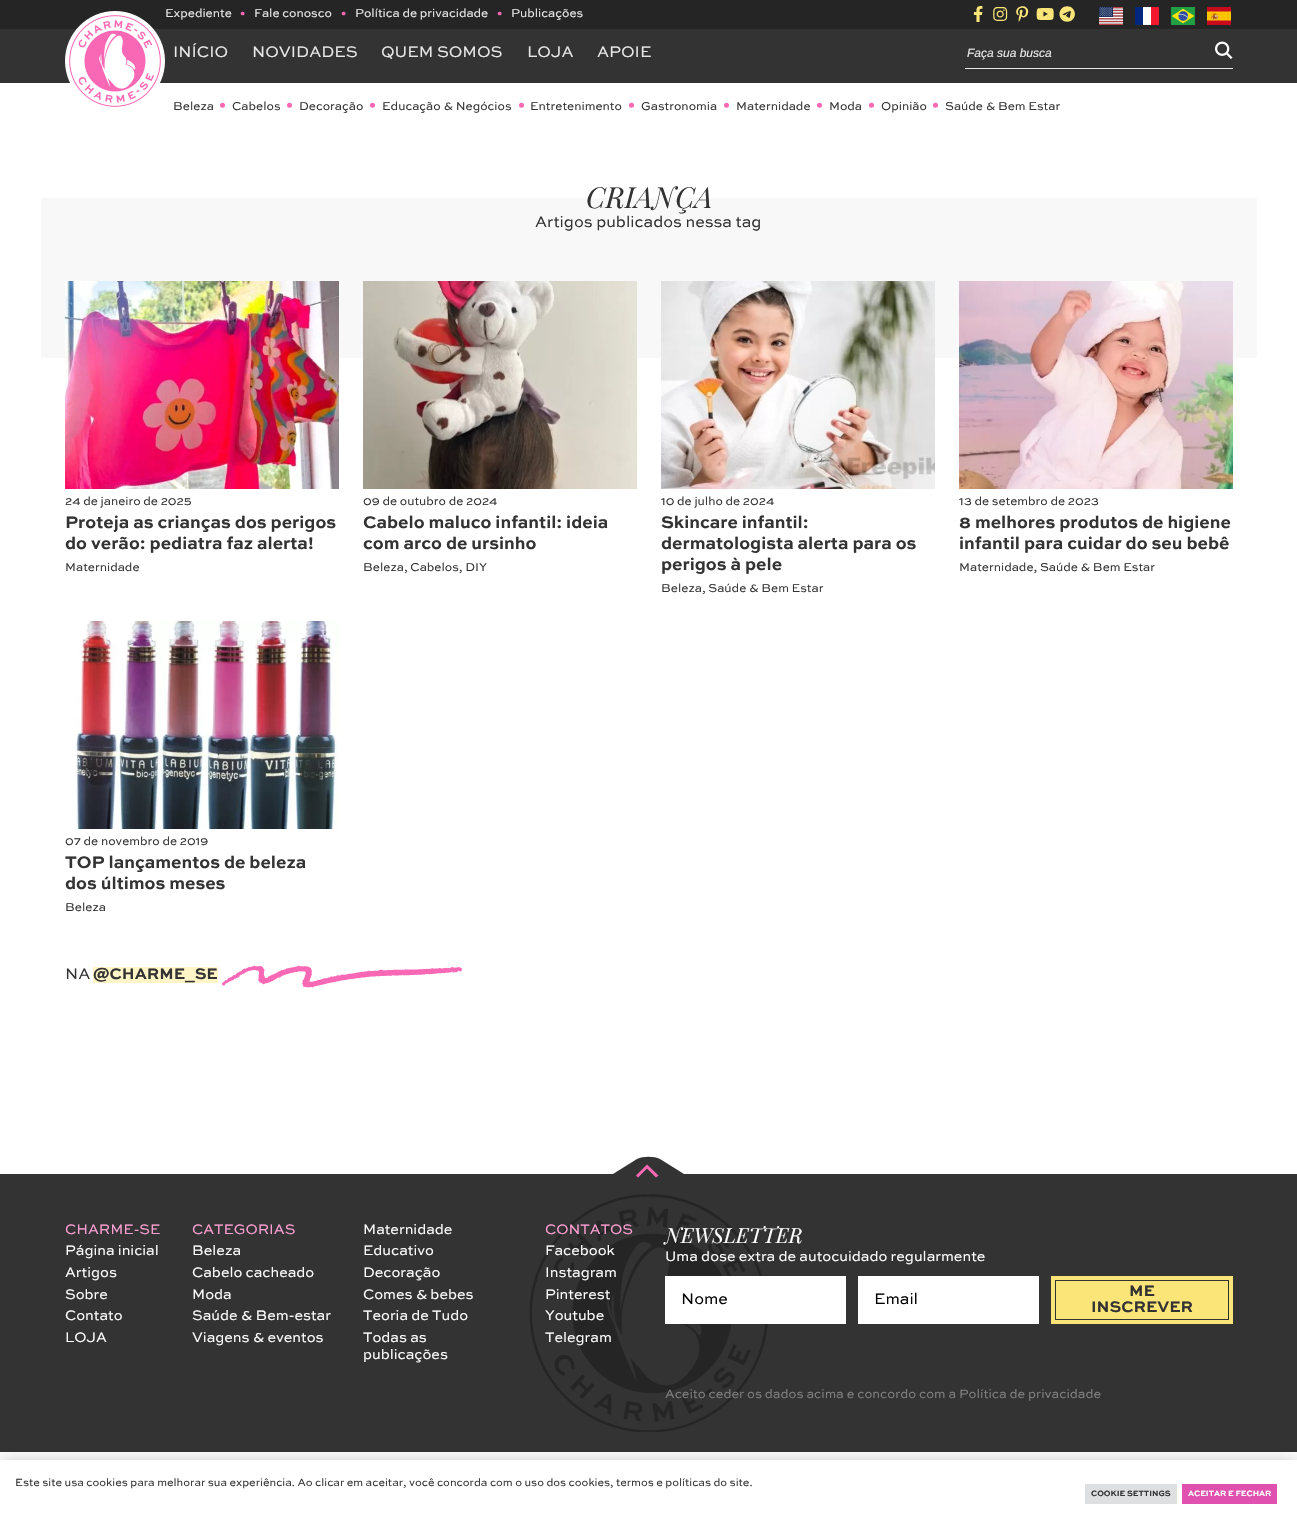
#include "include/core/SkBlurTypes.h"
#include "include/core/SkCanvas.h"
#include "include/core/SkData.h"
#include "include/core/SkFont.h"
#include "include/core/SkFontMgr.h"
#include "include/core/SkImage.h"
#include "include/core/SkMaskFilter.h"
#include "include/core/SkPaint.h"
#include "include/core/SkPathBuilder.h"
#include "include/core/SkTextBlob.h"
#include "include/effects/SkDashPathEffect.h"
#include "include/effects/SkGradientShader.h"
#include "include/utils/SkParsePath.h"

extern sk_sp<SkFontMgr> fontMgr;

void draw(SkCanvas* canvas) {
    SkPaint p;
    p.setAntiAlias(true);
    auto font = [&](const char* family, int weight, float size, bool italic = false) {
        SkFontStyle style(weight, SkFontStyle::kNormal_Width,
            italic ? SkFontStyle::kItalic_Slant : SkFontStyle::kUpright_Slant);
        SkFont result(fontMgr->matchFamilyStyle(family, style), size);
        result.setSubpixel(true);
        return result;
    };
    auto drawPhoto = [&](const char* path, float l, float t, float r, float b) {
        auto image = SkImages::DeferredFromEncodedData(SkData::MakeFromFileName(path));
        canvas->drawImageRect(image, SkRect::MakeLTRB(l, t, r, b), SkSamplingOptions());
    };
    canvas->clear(0xFFFFFFFF);
    p.setColor(0xFF252525);
    canvas->drawRect(SkRect::MakeLTRB(0, 0, 1297, 29), p);
    auto font1 = font("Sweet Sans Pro", 400, 12);
    p.setColor(0xFFE8E8E8);
    canvas->drawString("Expediente", 165, 17, font1, p);
    p.setColor(0xFFF868B5);
    canvas->drawString("•", 240, 17, font1, p);
    p.setColor(0xFFE8E8E8);
    canvas->drawString("Fale conosco", 254, 17, font1, p);
    p.setColor(0xFFF868B5);
    canvas->drawString("•", 341, 17, font1, p);
    p.setColor(0xFFE8E8E8);
    canvas->drawString("Política de privacidade", 355, 17, font1, p);
    p.setColor(0xFFF868B5);
    canvas->drawString("•", 497, 17, font1, p);
    p.setColor(0xFFE8E8E8);
    canvas->drawString("Publicações", 511, 17, font1, p);
    drawPhoto("media/1.png", 973, 6, 983, 22);
    drawPhoto("media/2.png", 993, 7, 1008, 21);
    drawPhoto("media/3.png", 1016, 6, 1029, 22);
    drawPhoto("media/4.png", 1036, 8, 1054, 20);
    drawPhoto("media/5.png", 1059, 6, 1075, 22);
    drawPhoto("media/6.png", 1099, 7, 1123, 25);
    {
        const struct { float l, t, r, b; SkColor color; } items[] = {
            {1135, 7, 1143, 25, 0xFF00267F},
            {1143, 7, 1151, 25, 0xFFFFFFFF},
            {1151, 7, 1159, 25, 0xFFF31830},
        };
        for (auto [l, t, r, b, color] : items) {
            p.setColor(color);
            canvas->drawRect(SkRect::MakeLTRB(l, t, r, b), p);
        }
    }
    drawPhoto("media/7.png", 1171, 7, 1195, 25);
    drawPhoto("media/8.png", 1207, 7, 1231, 25);
    p.setColor(0xFF333333);
    canvas->drawRect(SkRect::MakeLTRB(0, 29, 1297, 83), p);
    drawPhoto("media/9.png", 65, 11, 165, 107);
    auto font2 = font("Sweet Sans Pro", 400, 16);
    p.setColor(0xFFE8E8E8);
    {
        const struct { const char* s; float x, y; } items[] = {
            {"INÍCIO", 173, 57},
            {"NOVIDADES", 252, 57},
            {"QUEM SOMOS", 381, 57},
            {"LOJA", 527, 57},
            {"APOIE", 597, 57},
        };
        for (auto [s, x, y] : items) {
            canvas->drawString(s, x, y, font2, p);
        }
    }
    canvas->drawRect(SkRect::MakeLTRB(965, 68, 1233, 69), p);
    auto font3 = font("Liberation Sans", 400, 12, true);
    canvas->drawString("Faça sua busca", 967, 57, font3, p);
    drawPhoto("media/10.png", 1215, 41, 1233, 59);
    p.setColor(0xFF333333);
    canvas->drawString("Beleza", 173, 110, font1, p);
    p.setColor(0xFFF868B5);
    canvas->drawString("•", 219, 110, font2, p);
    p.setColor(0xFF333333);
    canvas->drawString("Cabelos", 232, 110, font1, p);
    p.setColor(0xFFF868B5);
    canvas->drawString("•", 286, 110, font2, p);
    p.setColor(0xFF333333);
    canvas->drawString("Decoração", 299, 110, font1, p);
    p.setColor(0xFFF868B5);
    canvas->drawString("•", 369, 110, font2, p);
    p.setColor(0xFF333333);
    canvas->drawString("Educação & Negócios", 382, 110, font1, p);
    p.setColor(0xFFF868B5);
    canvas->drawString("•", 518, 110, font2, p);
    p.setColor(0xFF333333);
    canvas->drawString("Entretenimento", 530, 110, font1, p);
    p.setColor(0xFFF868B5);
    canvas->drawString("•", 628, 110, font2, p);
    p.setColor(0xFF333333);
    canvas->drawString("Gastronomia", 641, 110, font1, p);
    p.setColor(0xFFF868B5);
    canvas->drawString("•", 723, 110, font2, p);
    p.setColor(0xFF333333);
    canvas->drawString("Maternidade", 736, 110, font1, p);
    p.setColor(0xFFF868B5);
    canvas->drawString("•", 816, 110, font2, p);
    p.setColor(0xFF333333);
    canvas->drawString("Moda", 829, 110, font1, p);
    p.setColor(0xFFF868B5);
    canvas->drawString("•", 868, 110, font2, p);
    p.setColor(0xFF333333);
    canvas->drawString("Opinião", 881, 110, font1, p);
    p.setColor(0xFFF868B5);
    canvas->drawString("•", 932, 110, font2, p);
    p.setColor(0xFF333333);
    canvas->drawString("Saúde & Bem Estar", 945, 110, font1, p);
    p.setColor(0xFFF8F8F8);
    canvas->drawRect(SkRect::MakeLTRB(41, 198, 1257, 358), p);
    auto font4 = font("Playfair Display", 400, 29, true);
    p.setColor(0xFF333333);
    canvas->drawString("CRIANÇA", 586, 208, font4, p);
    canvas->drawString("Artigos publicados nessa tag", 535, 227, font2, p);
    drawPhoto("media/11.png", 65, 281, 339, 489);
    canvas->drawString("24 de janeiro de 2025", 65, 505, font1, p);
    auto font5 = font("Sweet Sans Pro", 700, 17.6f);
    canvas->drawString("Proteja as crianças dos perigos", 65, 528, font5, p);
    canvas->drawString("do verão: pediatra faz alerta!", 65, 549, font5, p);
    canvas->drawString("Maternidade", 65, 571, font1, p);
    drawPhoto("media/12.png", 363, 281, 637, 489);
    canvas->drawString("09 de outubro de 2024", 363, 505, font1, p);
    canvas->drawString("Cabelo maluco infantil: ideia", 363, 528, font5, p);
    canvas->drawString("com arco de ursinho", 363, 549, font5, p);
    canvas->drawString("Beleza, Cabelos, DIY", 363, 571, font1, p);
    drawPhoto("media/13.png", 661, 281, 935, 489);
    canvas->drawString("10 de julho de 2024", 661, 505, font1, p);
    {
        const struct { const char* s; float x, y; } items[] = {
            {"Skincare infantil:", 661, 528},
            {"dermatologista alerta para os", 661, 549},
            {"perigos à pele", 661, 570},
        };
        for (auto [s, x, y] : items) {
            canvas->drawString(s, x, y, font5, p);
        }
    }
    canvas->drawString("Beleza, Saúde & Bem Estar", 661, 592, font1, p);
    drawPhoto("media/14.png", 959, 281, 1233, 489);
    canvas->drawString("13 de setembro de 2023", 959, 505, font1, p);
    canvas->drawString("8 melhores produtos de higiene", 959, 528, font5, p);
    canvas->drawString("infantil para cuidar do seu bebê", 959, 549, font5, p);
    canvas->drawString("Maternidade, Saúde & Bem Estar", 959, 571, font1, p);
    drawPhoto("media/15.png", 75, 621, 339, 829);
    canvas->drawString("07 de novembro de 2019", 65, 845, font1, p);
    canvas->drawString("TOP lançamentos de beleza", 65, 868, font5, p);
    canvas->drawString("dos últimos meses", 65, 889, font5, p);
    canvas->drawString("Beleza", 65, 911, font1, p);
    canvas->drawString("NA", 65, 979, font2, p);
    p.setColor(0xFFFFF5C7);
    canvas->drawRect(SkRect::MakeLTRB(93, 967, 218, 983), p);
    auto font6 = font("Sweet Sans Pro", 700, 16);
    p.setColor(0xFF333333);
    canvas->drawString("@CHARME_SE", 93, 979, font6, p);
    drawPhoto("media/16.png", 222, 965, 462, 988);
    canvas->drawRect(SkRect::MakeLTRB(0, 1174, 1297, 1452), p);
    drawPhoto("media/17.png", 529, 1194, 768, 1432);
    canvas->drawPath(SkPathBuilder().moveTo(613, 1174).lineTo(637, 1159).cubicTo(643, 1156, 654, 1156, 660, 1159).lineTo(684, 1174).lineTo(648, 1195).close().detach(), p);
    p.setColor(0xFFF868B5);
    canvas->drawPath(SkPathBuilder().moveTo(647, 1164.5f).lineTo(636, 1175.5f).lineTo(638, 1177.5f).lineTo(647, 1168.5f).lineTo(656, 1177.5f).lineTo(658.5f, 1175.5f).close().detach(), p);
    auto font7 = font("Sweet Sans Pro", 400, 14.4f);
    p.setColor(0xFFFFA0D4);
    canvas->drawString("CHARME-SE", 65, 1234, font7, p);
    p.setColor(0xFFFFFFFF);
    {
        const struct { const char* s; float x, y; } items[] = {
            {"Página inicial", 65, 1255},
            {"Artigos", 65, 1277},
            {"Sobre", 65, 1299},
            {"Contato", 65, 1320},
            {"LOJA", 65, 1342},
        };
        for (auto [s, x, y] : items) {
            canvas->drawString(s, x, y, font7, p);
        }
    }
    p.setColor(0xFFFFA0D4);
    canvas->drawString("CATEGORIAS", 192, 1234, font7, p);
    p.setColor(0xFFFFFFFF);
    {
        const struct { const char* s; float x, y; } items[] = {
            {"Beleza", 192, 1255},
            {"Cabelo cacheado", 192, 1277},
            {"Moda", 192, 1299},
            {"Saúde & Bem-estar", 192, 1320},
            {"Viagens & eventos", 192, 1342},
            {"Maternidade", 363, 1234},
            {"Educativo", 363, 1255},
            {"Decoração", 363, 1277},
            {"Comes & bebes", 363, 1299},
            {"Teoria de Tudo", 363, 1320},
            {"Todas as", 363, 1342},
            {"publicações", 363, 1359},
        };
        for (auto [s, x, y] : items) {
            canvas->drawString(s, x, y, font7, p);
        }
    }
    p.setColor(0xFFFFA0D4);
    canvas->drawString("CONTATOS", 545, 1234, font7, p);
    p.setColor(0xFFFFFFFF);
    {
        const struct { const char* s; float x, y; } items[] = {
            {"Facebook", 545, 1255},
            {"Instagram", 545, 1277},
            {"Pinterest", 545, 1299},
            {"Youtube", 545, 1320},
            {"Telegram", 545, 1342},
        };
        for (auto [s, x, y] : items) {
            canvas->drawString(s, x, y, font7, p);
        }
    }
    auto font8 = font("Playfair Display", 400, 20.75f, true);
    canvas->drawString("NEWSLETTER", 665, 1243, font8, p);
    canvas->drawString("Uma dose extra de autocuidado regularmente", 665, 1261, font7, p);
    canvas->drawRect(SkRect::MakeLTRB(665, 1276, 846, 1324), p);
    p.setColor(0xFF000000);
    canvas->drawString("Nome", 681, 1304, font2, p);
    p.setColor(0xFFFFFFFF);
    canvas->drawRect(SkRect::MakeLTRB(858, 1276, 1039, 1324), p);
    p.setColor(0xFF000000);
    canvas->drawString("Email", 874, 1304, font2, p);
    p.setColor(0xFFFBE578);
    canvas->drawRect(SkRect::MakeLTRB(1051, 1276, 1233, 1324), p);
    p.setStyle(SkPaint::kStroke_Style);
    p.setStrokeWidth(1);
    p.setColor(0xFF333333);
    canvas->drawRect(SkRect::MakeLTRB(1055.5f, 1280.5f, 1228.5f, 1319.5f), p);
    p.setStyle(SkPaint::kFill_Style);
    canvas->drawString("ME", 1129, 1296, font6, p);
    canvas->drawString("INSCREVER", 1091, 1312, font6, p);
    auto font9 = font("Sweet Sans Pro", 400, 12.8f);
    p.setColor(0xFF808080);
    canvas->drawString("Aceito ceder os dados acima e concordo com a Política de privacidade", 665, 1398, font9, p);
    p.setColor(0x33000000);
    p.setMaskFilter(SkMaskFilter::MakeBlur(kNormal_SkBlurStyle, 7.5f));
    canvas->drawRect(SkRect::MakeLTRB(0, 1460, 1297, 1528), p);
    p.setMaskFilter(nullptr);
    p.setColor(0xFFFFFFFF);
    canvas->drawRect(SkRect::MakeLTRB(0, 1460, 1297, 1528), p);
    auto font10 = font("Sweet Sans Pro", 400, 11);
    p.setColor(0xFF333333);
    canvas->drawString("Este site usa cookies para melhorar sua experiência. Ao clicar em aceitar, você concorda com o uso dos cookies, termos e políticas do site.", 15, 1486, font10, p);
    p.setColor(0xFFDEDFE0);
    canvas->drawRect(SkRect::MakeLTRB(1085, 1484, 1177, 1504), p);
    auto font11 = font("Sweet Sans Pro", 700, 8);
    p.setColor(0xFF333333);
    canvas->drawString("COOKIE SETTINGS", 1091, 1496, font11, p);
    p.setColor(0xFFE050AE);
    canvas->drawRect(SkRect::MakeLTRB(1182, 1484, 1277, 1504), p);
    p.setColor(0xFFFFFFFF);
    canvas->drawString("ACEITAR E FECHAR", 1188, 1496, font11, p);
}
